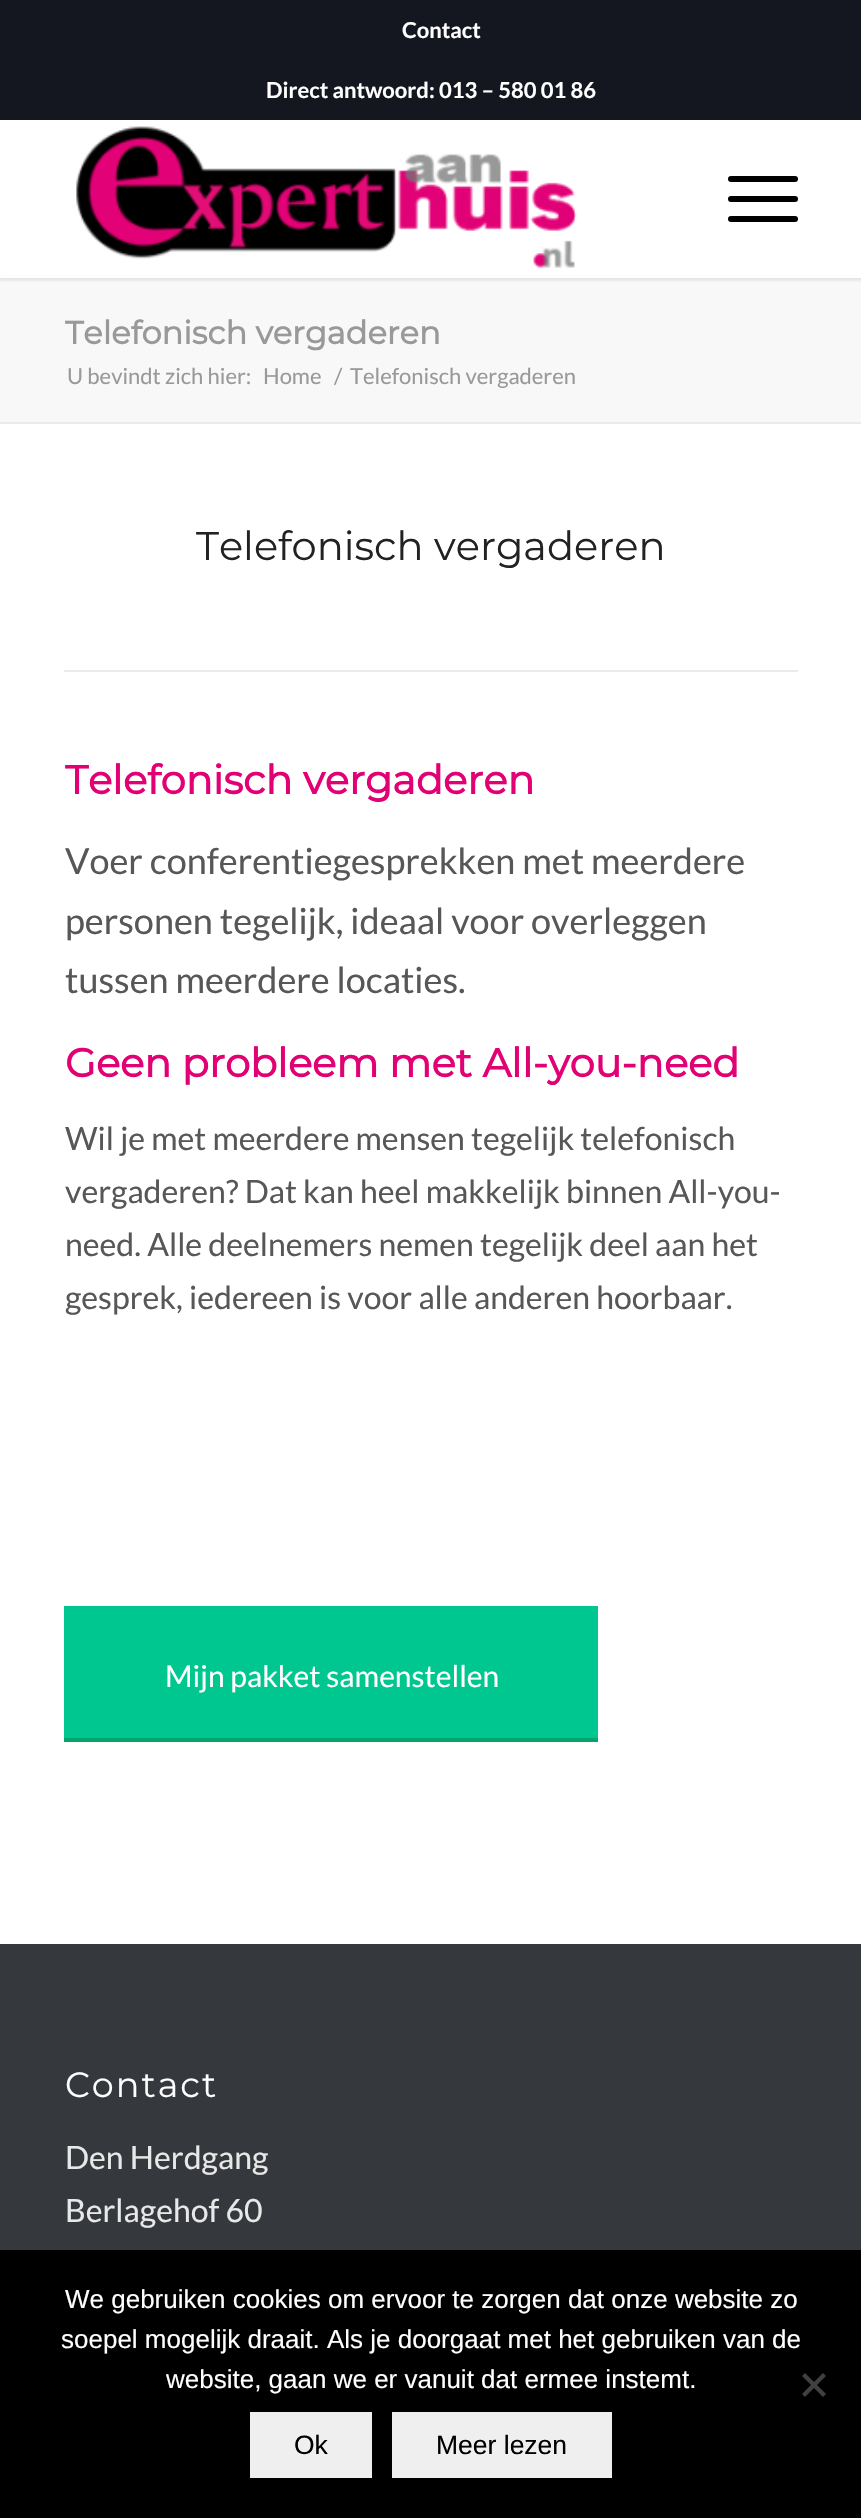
#include "include/core/SkBlurTypes.h"
#include "include/core/SkCanvas.h"
#include "include/core/SkData.h"
#include "include/core/SkFont.h"
#include "include/core/SkFontMgr.h"
#include "include/core/SkImage.h"
#include "include/core/SkMaskFilter.h"
#include "include/core/SkPaint.h"
#include "include/core/SkPathBuilder.h"
#include "include/core/SkTextBlob.h"
#include "include/effects/SkDashPathEffect.h"
#include "include/effects/SkGradientShader.h"
#include "include/utils/SkParsePath.h"

extern sk_sp<SkFontMgr> fontMgr;

void draw(SkCanvas* canvas) {
    SkPaint p;
    p.setAntiAlias(true);
    auto font = [&](const char* family, int weight, float size, bool italic = false) {
        SkFontStyle style(weight, SkFontStyle::kNormal_Width,
            italic ? SkFontStyle::kItalic_Slant : SkFontStyle::kUpright_Slant);
        SkFont result(fontMgr->matchFamilyStyle(family, style), size);
        result.setSubpixel(true);
        return result;
    };
    auto drawTracked = [&](const char* s, float x, float y, const SkFont& font, const SkPaint& ink, float letter, float word) {
        std::vector<SkGlyphID> glyphs(font.countText(s, strlen(s), SkTextEncoding::kUTF8));
        std::vector<float> xs(glyphs.size());
        font.textToGlyphs(s, strlen(s), SkTextEncoding::kUTF8, glyphs);
        font.getXPos(glyphs, xs, x);
        float extra = 0;
        for (size_t i = 0; i < glyphs.size(); i++) {
            xs[i] += extra;
            extra += letter + word * (glyphs[i] == font.unicharToGlyph(' '));
        }
        canvas->drawTextBlob(SkTextBlob::MakeFromPosHGlyphs(glyphs, xs, y, font), 0, 0, ink);
    };
    auto drawPhoto = [&](const char* path, float l, float t, float r, float b) {
        auto image = SkImages::DeferredFromEncodedData(SkData::MakeFromFileName(path));
        canvas->drawImageRect(image, SkRect::MakeLTRB(l, t, r, b), SkSamplingOptions());
    };
    canvas->clear(0xFFFFFFFF);
    p.setColor(0xFFF8F8F8);
    canvas->drawRect(SkRect::MakeLTRB(0, 278, 861, 422), p);
    canvas->save();
    canvas->clipRect(SkRect::MakeLTRB(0, 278, 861, 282));
    p.setColor(0x1A000000);
    p.setMaskFilter(SkMaskFilter::MakeBlur(kNormal_SkBlurStyle, 2));
    canvas->drawRect(SkRect::MakeLTRB(-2, -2, 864, 280), p);
    p.setMaskFilter(nullptr);
    canvas->restore();
    p.setColor(0xFF151720);
    canvas->drawRect(SkRect::MakeLTRB(0, 0, 861, 120), p);
    auto font1 = font("Lato", 700, 22);
    p.setColor(0xFFFFFFFF);
    canvas->drawString("Contact", 402, 38, font1, p);
    canvas->drawString("Direct antwoord: 013 – 580 01 86", 266, 98, font1, p);
    drawPhoto("media/1.png", 76, 126, 577, 268);
    p.setColor(0xFF000000);
    canvas->drawRoundRect(SkRect::MakeLTRB(728, 196, 798, 202), 3, 3, p);
    canvas->drawRoundRect(SkRect::MakeLTRB(728, 176, 798, 182), 3, 3, p);
    canvas->drawRoundRect(SkRect::MakeLTRB(728, 216, 798, 222), 3, 3, p);
    auto font2 = font("Montserrat", 700, 32);
    p.setColor(0xFF999999);
    canvas->drawString("Telefonisch vergaderen", 65, 344, font2, p);
    auto font3 = font("Lato", 400, 22);
    {
        const struct { const char* s; float x, y; } items[] = {
            {"U bevindt zich hier:", 67, 384},
            {"Home", 263, 384},
            {"/", 334, 384},
            {"Telefonisch vergaderen", 350, 384},
        };
        for (auto [s, x, y] : items) {
            canvas->drawString(s, x, y, font3, p);
        }
    }
    p.setColor(0xFFEBEBEB);
    canvas->drawRect(SkRect::MakeLTRB(0, 422, 861, 424), p);
    auto font4 = font("Montserrat", 100, 40);
    p.setColor(0xFF222222);
    canvas->drawString("Telefonisch vergaderen", 196, 560, font4, p);
    p.setColor(0xFFEBEBEB);
    canvas->drawRect(SkRect::MakeLTRB(64, 670, 798, 672), p);
    auto font5 = font("Montserrat", 700, 40);
    p.setColor(0xFFE20175);
    canvas->drawString("Telefonisch vergaderen", 65, 794, font5, p);
    auto font6 = font("Lato", 400, 36);
    p.setColor(0xFF575757);
    {
        const struct { const char* s; float x, y; } items[] = {
            {"Voer conferentiegesprekken met meerdere", 65, 874},
            {"personen tegelijk, ideaal voor overleggen", 65, 934},
            {"tussen meerdere locaties.", 65, 993},
        };
        for (auto [s, x, y] : items) {
            canvas->drawString(s, x, y, font6, p);
        }
    }
    p.setColor(0xFFE20175);
    canvas->drawString("Geen probleem met All-you-need", 65, 1077, font5, p);
    auto font7 = font("Lato", 400, 32);
    p.setColor(0xFF575757);
    {
        const struct { const char* s; float x, y; } items[] = {
            {"Wil je met meerdere mensen tegelijk telefonisch", 65, 1150},
            {"vergaderen? Dat kan heel makkelijk binnen All-you-", 65, 1203},
            {"need. Alle deelnemers nemen tegelijk deel aan het", 65, 1256},
            {"gesprek, iedereen is voor alle anderen hoorbaar.", 65, 1309},
        };
        for (auto [s, x, y] : items) {
            canvas->drawString(s, x, y, font7, p);
        }
    }
    p.setColor(0xFF00C78F);
    canvas->drawRect(SkRect::MakeLTRB(64, 1606, 598, 1738), p);
    p.setColor(0xFF00A56D);
    canvas->drawRect(SkRect::MakeLTRB(64, 1738, 598, 1742), p);
    auto font8 = font("Lato", 400, 30);
    p.setColor(0xFFFFFFFF);
    canvas->drawString("Mijn pakket samenstellen", 165, 1687, font8, p);
    p.setColor(0xFF35383C);
    canvas->drawRect(SkRect::MakeLTRB(0, 1944, 861, 2250), p);
    auto font9 = font("Montserrat", 100, 35);
    p.setColor(0xFFFFFFFF);
    drawTracked("Contact", 65, 2097, font9, p, 2, 0);
    p.setColor(0xFFE8E8E8);
    canvas->drawString("Den Herdgang", 65, 2169, font7, p);
    canvas->drawString("Berlagehof 60", 65, 2222, font7, p);
    p.setColor(0xFF000000);
    canvas->drawRect(SkRect::MakeLTRB(0, 2250, 861, 2518), p);
    auto font10 = font("Liberation Sans", 400, 26);
    p.setColor(0xFFFFFFFF);
    {
        const struct { const char* s; float x, y; } items[] = {
            {"We gebruiken cookies om ervoor te zorgen dat onze website zo", 65, 2308},
            {"soepel mogelijk draait. Als je doorgaat met het gebruiken van de", 61, 2348},
            {"website, gaan we er vanuit dat ermee instemt.", 166, 2388},
        };
        for (auto [s, x, y] : items) {
            canvas->drawString(s, x, y, font10, p);
        }
    }
    p.setColor(0xFF404040);
    canvas->drawPath(SkPathBuilder().moveTo(823, 2373).lineTo(826, 2376).lineTo(805, 2397).lineTo(802, 2394).close().detach(), p);
    canvas->drawPath(SkPathBuilder().moveTo(802, 2376).lineTo(805, 2373).lineTo(826, 2394).lineTo(823, 2397).close().detach(), p);
    p.setColor(0xFFEFEFEF);
    canvas->drawRect(SkRect::MakeLTRB(250, 2412, 372, 2478), p);
    auto font11 = font("Liberation Sans", 400, 26.5f);
    p.setColor(0xFF000000);
    canvas->drawString("Ok", 294, 2454, font11, p);
    p.setColor(0xFFEFEFEF);
    canvas->drawRect(SkRect::MakeLTRB(392, 2412, 612, 2478), p);
    p.setColor(0xFF000000);
    canvas->drawString("Meer lezen", 436, 2454, font11, p);
}
